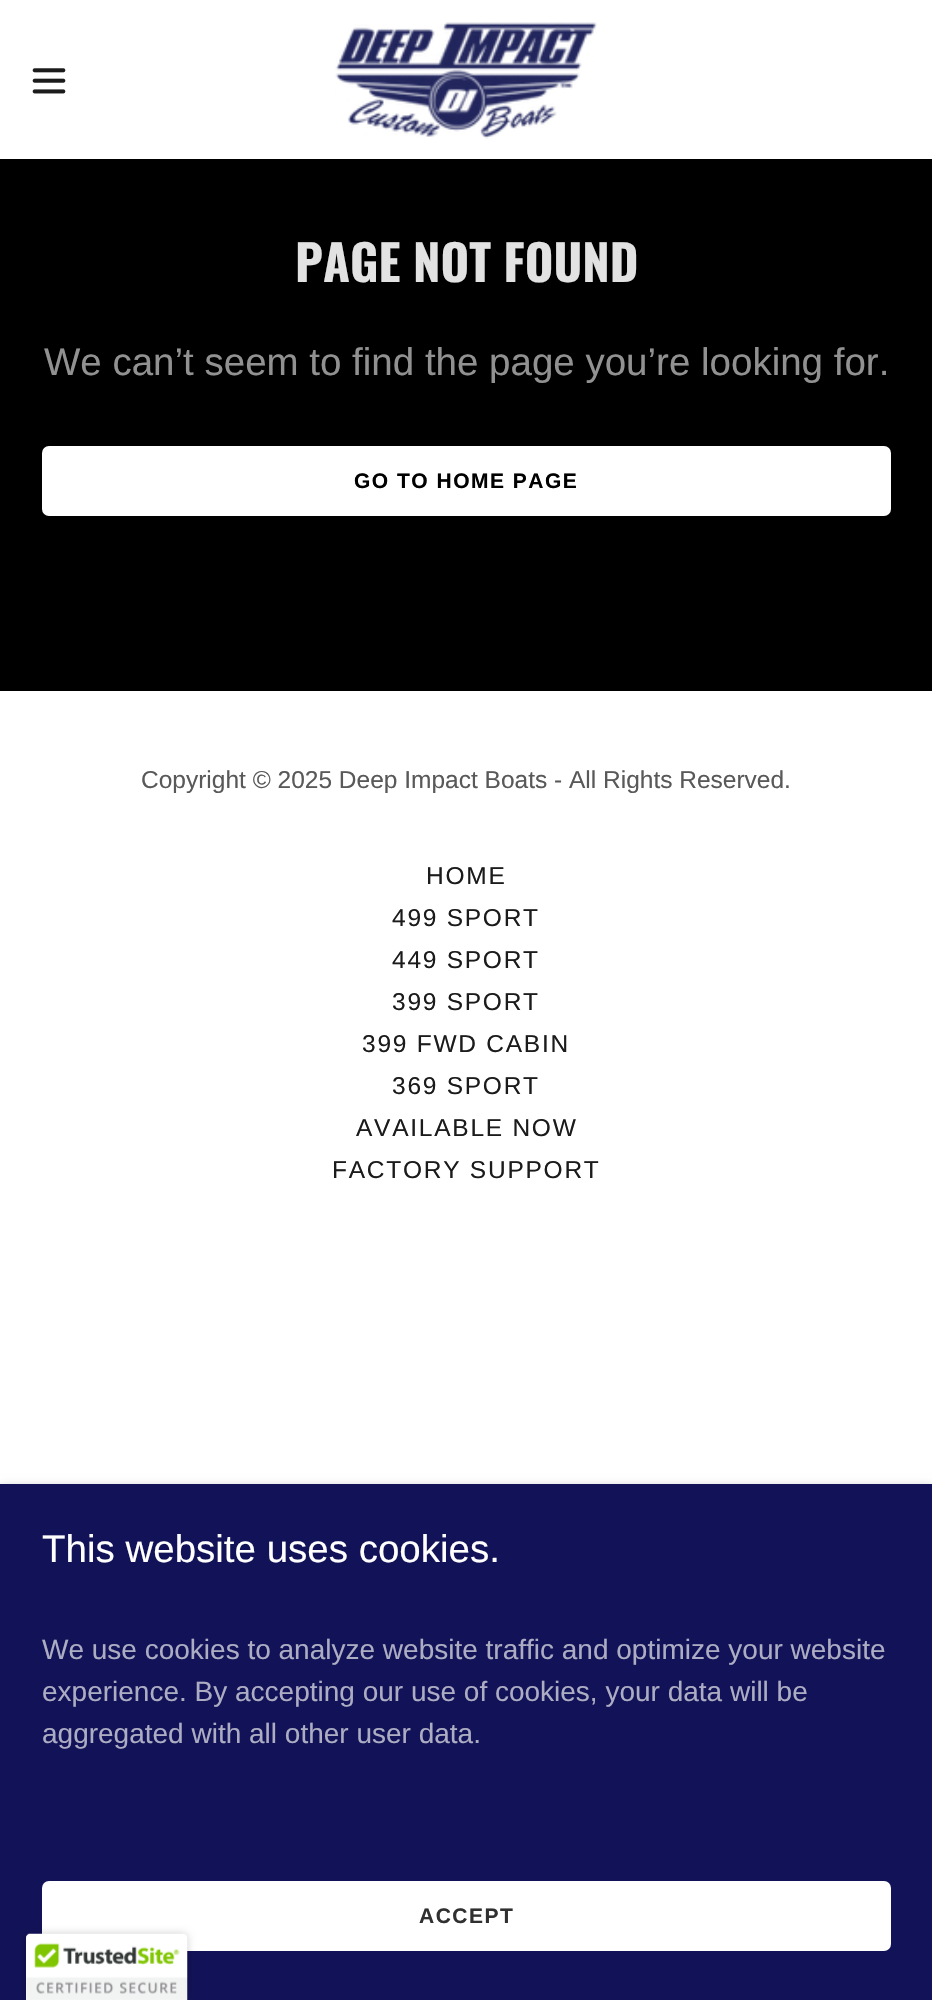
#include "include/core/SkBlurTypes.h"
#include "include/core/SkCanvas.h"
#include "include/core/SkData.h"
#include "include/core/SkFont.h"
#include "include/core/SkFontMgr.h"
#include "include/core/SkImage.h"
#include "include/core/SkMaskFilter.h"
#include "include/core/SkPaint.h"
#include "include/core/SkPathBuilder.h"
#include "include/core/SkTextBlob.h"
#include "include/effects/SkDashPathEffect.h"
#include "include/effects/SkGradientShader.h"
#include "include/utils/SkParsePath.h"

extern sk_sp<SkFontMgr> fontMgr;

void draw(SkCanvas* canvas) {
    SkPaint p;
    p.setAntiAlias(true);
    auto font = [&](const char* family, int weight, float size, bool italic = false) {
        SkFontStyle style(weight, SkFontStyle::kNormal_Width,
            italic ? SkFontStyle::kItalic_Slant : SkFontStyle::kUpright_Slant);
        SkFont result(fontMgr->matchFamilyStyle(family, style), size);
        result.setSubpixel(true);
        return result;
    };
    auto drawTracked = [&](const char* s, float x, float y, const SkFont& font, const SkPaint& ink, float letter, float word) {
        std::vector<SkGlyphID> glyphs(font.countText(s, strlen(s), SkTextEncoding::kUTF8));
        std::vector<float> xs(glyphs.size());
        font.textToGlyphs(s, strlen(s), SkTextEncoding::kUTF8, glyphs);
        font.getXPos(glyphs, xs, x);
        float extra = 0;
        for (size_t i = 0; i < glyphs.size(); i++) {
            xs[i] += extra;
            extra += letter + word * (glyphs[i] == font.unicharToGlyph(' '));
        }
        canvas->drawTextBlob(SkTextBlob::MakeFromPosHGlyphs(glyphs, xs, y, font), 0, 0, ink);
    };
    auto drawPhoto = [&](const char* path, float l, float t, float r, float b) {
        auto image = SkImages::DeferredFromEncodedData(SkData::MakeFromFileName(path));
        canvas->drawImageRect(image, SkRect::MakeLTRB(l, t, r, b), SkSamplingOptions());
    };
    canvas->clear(0xFFFFFFFF);
    drawPhoto("media/1.png", 32, 68, 66, 94);
    drawPhoto("media/2.png", 335, 22, 597, 139);
    p.setColor(0xFF000000);
    canvas->drawRect(SkRect::MakeLTRB(0, 159, 932, 691), p);
    auto font1 = font("Oswald", 700, 49);
    p.setColor(0xFFE2E2E2);
    canvas->drawString("PAGE NOT FOUND", 295, 282, font1, p);
    auto font2 = font("Liberation Sans", 400, 38.5f);
    p.setColor(0xFF919191);
    canvas->drawString("We can’t seem to find the page you’re looking for.", 44, 375, font2, p);
    p.setColor(0xFFFFFFFF);
    canvas->drawRoundRect(SkRect::MakeLTRB(42, 446, 891, 516), 7, 7, p);
    auto font3 = font("Liberation Sans", 700, 21);
    p.setColor(0xFF000000);
    drawTracked("GO TO HOME PAGE", 354, 488, font3, p, 1.5f, 0);
    auto font4 = font("Liberation Sans", 400, 24.5f);
    p.setColor(0xFF595959);
    canvas->drawString("Copyright © 2025 Deep Impact Boats - All Rights Reserved.", 141, 788, font4, p);
    p.setColor(0xFF1B1B1B);
    {
        const struct { const char* s; float x, y; } items[] = {
            {"HOME", 426, 884},
            {"499 SPORT", 392, 926},
            {"449 SPORT", 392, 968},
            {"399 SPORT", 392, 1010},
            {"399 FWD CABIN", 362, 1052},
            {"369 SPORT", 392, 1094},
            {"AVAILABLE NOW", 356, 1136},
            {"FACTORY SUPPORT", 332, 1178},
        };
        for (auto [s, x, y] : items) {
            drawTracked(s, x, y, font4, p, 1.75f, 0);
        }
    }
    p.setColor(0x4D000000);
    p.setMaskFilter(SkMaskFilter::MakeBlur(kNormal_SkBlurStyle, 5));
    canvas->drawRect(SkRect::MakeLTRB(0, 1488, 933, 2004), p);
    p.setMaskFilter(nullptr);
    p.setColor(0xFF121258);
    canvas->drawRect(SkRect::MakeLTRB(0, 1484, 932, 2000), p);
    p.setColor(0xFFFFFFFF);
    canvas->drawString("This website uses cookies.", 42, 1562, font2, p);
    auto font5 = font("Liberation Sans", 400, 28);
    p.setColor(0xFFACACC3);
    {
        const struct { const char* s; float x, y; } items[] = {
            {"We use cookies to analyze website traffic and optimize your website", 42, 1659},
            {"experience. By accepting our use of cookies, your data will be", 42, 1701},
            {"aggregated with all other user data.", 42, 1743},
        };
        for (auto [s, x, y] : items) {
            canvas->drawString(s, x, y, font5, p);
        }
    }
    p.setColor(0xFFFFFFFF);
    canvas->drawRoundRect(SkRect::MakeLTRB(42, 1881, 891, 1951), 7, 7, p);
    p.setColor(0xFF303030);
    drawTracked("ACCEPT", 419, 1923, font3, p, 1.5f, 0);
    p.setColor(0x33000000);
    p.setMaskFilter(SkMaskFilter::MakeBlur(kNormal_SkBlurStyle, 4.5f));
    canvas->drawRoundRect(SkRect::MakeLTRB(26, 1934, 187, 2000), 4, 4, p);
    p.setMaskFilter(nullptr);
    p.setColor(0xFFFFFFFF);
    canvas->drawPath(SkPathBuilder().moveTo(30, 1934).lineTo(183, 1934).cubicTo(185, 1934, 187, 1936, 187, 1938).lineTo(187, 2000).lineTo(26, 2000).lineTo(26, 1938).cubicTo(26, 1936, 28, 1934, 30, 1934).close().detach(), p);
    drawPhoto("media/3.png", 26, 1933, 188, 2000);
}
